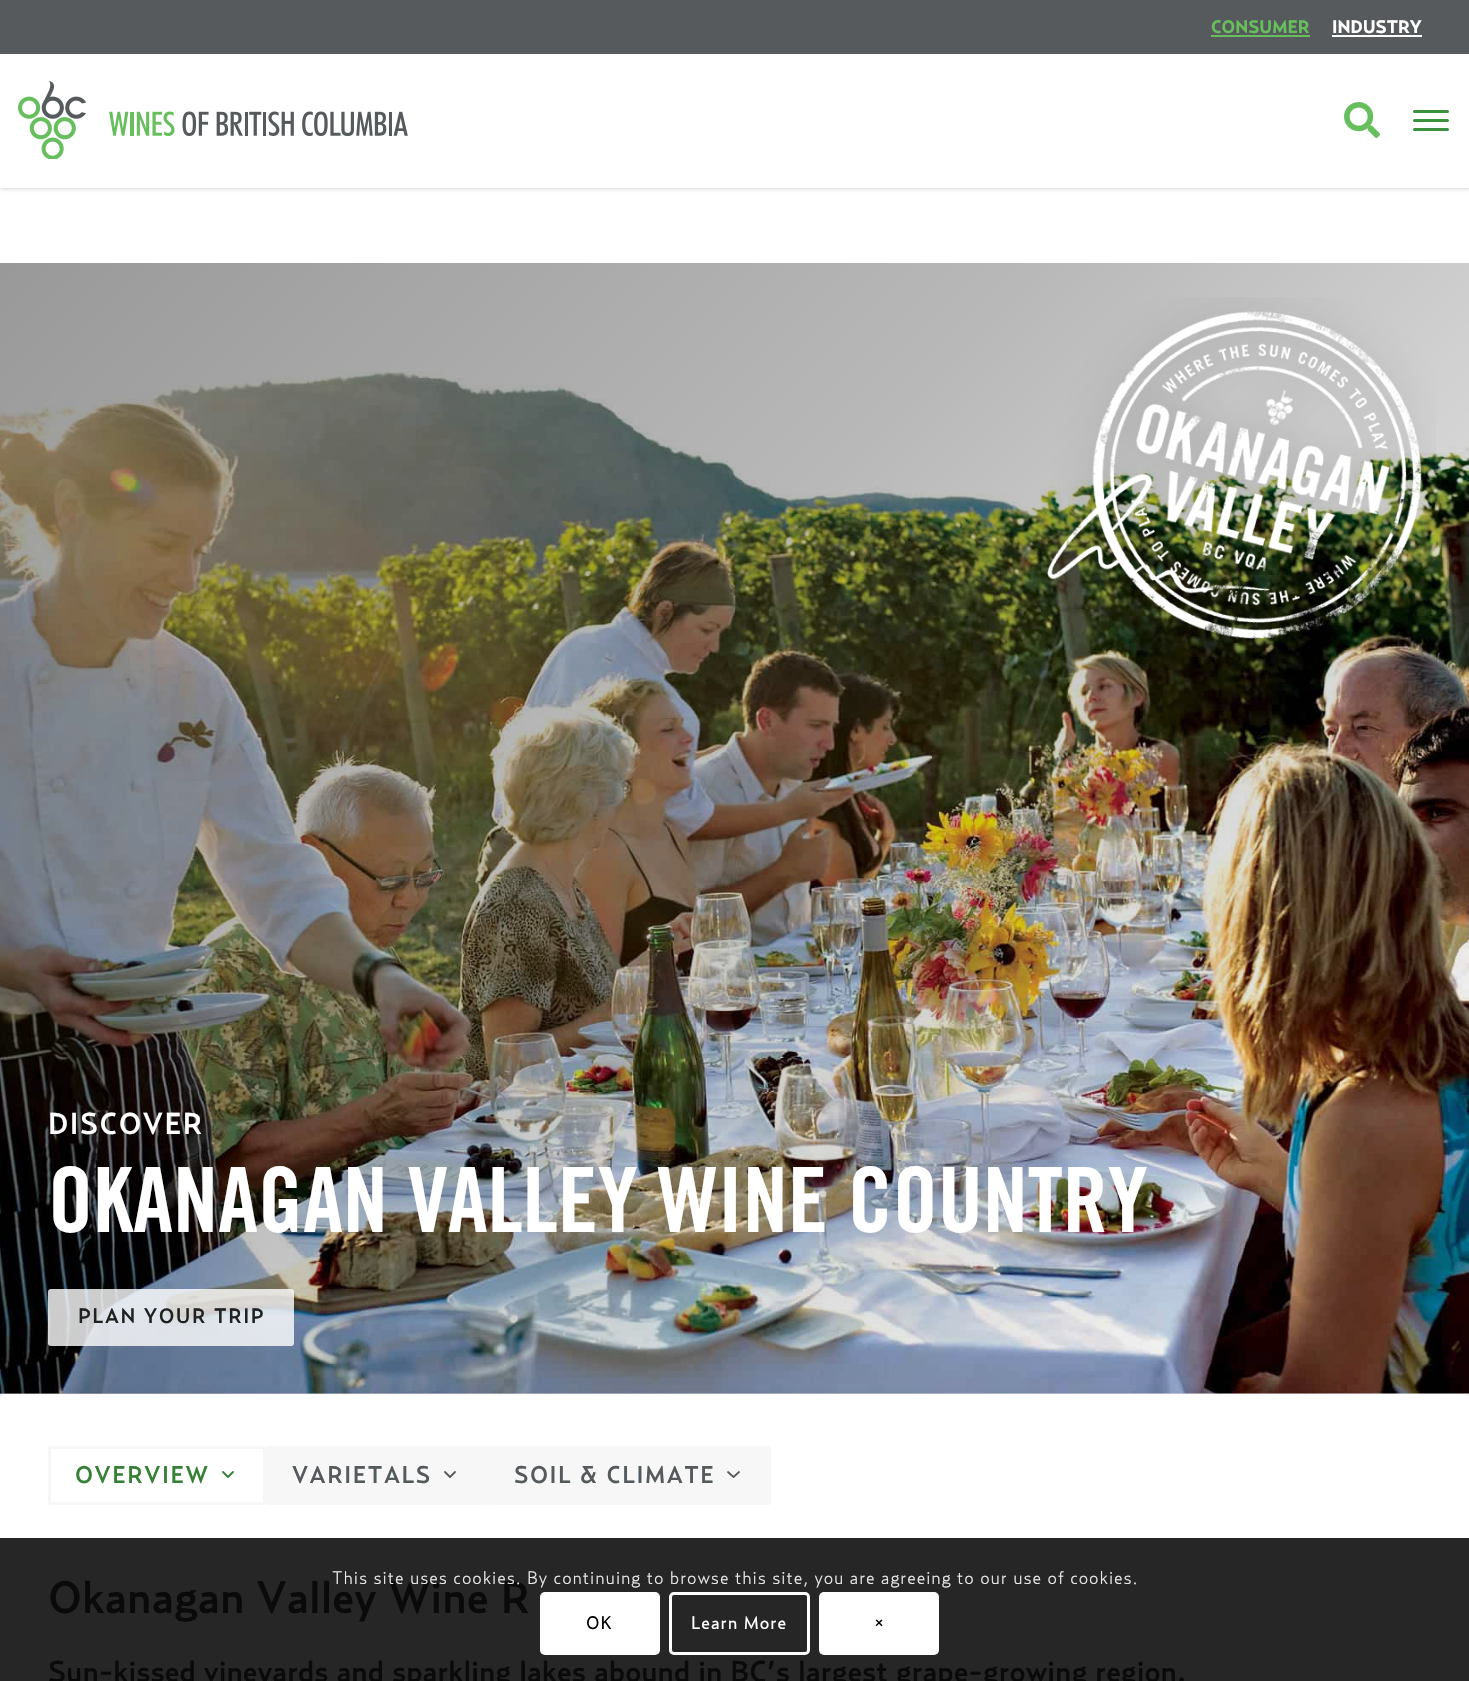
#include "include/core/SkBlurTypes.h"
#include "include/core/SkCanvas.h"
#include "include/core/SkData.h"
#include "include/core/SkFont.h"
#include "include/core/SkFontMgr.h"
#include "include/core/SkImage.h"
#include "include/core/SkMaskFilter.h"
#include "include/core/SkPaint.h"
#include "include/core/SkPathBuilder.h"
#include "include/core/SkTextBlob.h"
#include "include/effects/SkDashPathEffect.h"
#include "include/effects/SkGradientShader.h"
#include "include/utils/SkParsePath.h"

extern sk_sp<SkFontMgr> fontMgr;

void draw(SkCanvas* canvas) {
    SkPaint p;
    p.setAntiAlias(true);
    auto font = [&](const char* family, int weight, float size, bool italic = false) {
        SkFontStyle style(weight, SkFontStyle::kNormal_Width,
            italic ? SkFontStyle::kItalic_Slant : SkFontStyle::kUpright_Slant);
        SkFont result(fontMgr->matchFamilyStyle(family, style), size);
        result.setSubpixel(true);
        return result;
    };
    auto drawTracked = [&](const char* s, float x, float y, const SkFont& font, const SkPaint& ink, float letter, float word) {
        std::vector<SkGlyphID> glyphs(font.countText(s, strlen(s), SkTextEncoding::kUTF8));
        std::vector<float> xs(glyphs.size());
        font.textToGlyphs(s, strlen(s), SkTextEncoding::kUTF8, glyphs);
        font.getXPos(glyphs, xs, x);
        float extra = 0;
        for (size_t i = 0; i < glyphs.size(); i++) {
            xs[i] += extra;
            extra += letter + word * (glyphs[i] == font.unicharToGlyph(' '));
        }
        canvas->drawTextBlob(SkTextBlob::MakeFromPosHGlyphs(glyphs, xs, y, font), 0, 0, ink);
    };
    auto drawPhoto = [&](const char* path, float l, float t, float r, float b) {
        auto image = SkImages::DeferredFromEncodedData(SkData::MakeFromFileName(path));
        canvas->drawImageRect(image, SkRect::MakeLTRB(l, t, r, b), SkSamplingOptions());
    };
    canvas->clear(0xFFFFFFFF);
    p.setColor(0x1A000000);
    p.setMaskFilter(SkMaskFilter::MakeBlur(kNormal_SkBlurStyle, 1.5f));
    canvas->drawRect(SkRect::MakeLTRB(2, 3, 1469, 188), p);
    p.setMaskFilter(nullptr);
    p.setMaskFilter(SkMaskFilter::MakeBlur(kNormal_SkBlurStyle, 2));
    canvas->drawRect(SkRect::MakeLTRB(0, 2, 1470, 189), p);
    p.setMaskFilter(nullptr);
    p.setColor(0xFF565A5C);
    canvas->drawRect(SkRect::MakeLTRB(0, 0, 1469, 54), p);
    auto font1 = font("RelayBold", 700, 18);
    p.setColor(0xFF67BE5D);
    canvas->drawString("CONSUMER", 1211, 33, font1, p);
    canvas->drawRect(SkRect::MakeLTRB(1211, 35, 1310, 37), p);
    p.setColor(0xFFFFFFFF);
    canvas->drawString("INDUSTRY", 1332, 33, font1, p);
    canvas->drawRect(SkRect::MakeLTRB(1332, 35, 1422, 37), p);
    canvas->drawRect(SkRect::MakeLTRB(0, 54, 1469, 188), p);
    drawPhoto("media/1.png", 18, 81, 408, 159);
    drawPhoto("media/2.png", 1344, 102, 1380, 138);
    p.setColor(0xFF3A913E);
    canvas->drawRoundRect(SkRect::MakeLTRB(1413, 110, 1449, 113), 1.5f, 1.5f, p);
    canvas->drawRoundRect(SkRect::MakeLTRB(1413, 119, 1449, 122), 1.5f, 1.5f, p);
    canvas->drawRoundRect(SkRect::MakeLTRB(1413, 128, 1449, 131), 1.5f, 1.5f, p);
    drawPhoto("media/3.png", 0, 371, 1469, 1394);
    {
        const SkColor colors[] = {0x66000000, 0x47000000, 0x2E000000, 0x00000000};
        const float stops[] = {0, 0.4f, 0.6f, 1};
        const SkPoint ends[] = {{85, 178}, {1385, 1478}};
        p.setShader(SkGradientShader::MakeLinear(ends, colors, stops, 4, SkTileMode::kClamp));
        p.setAlpha(255);
    }
    canvas->drawRect(SkRect::MakeLTRB(0, 263, 1469, 1394), p);
    drawPhoto("media/4.png", 1047, 297, 1436, 648);
    auto font2 = font("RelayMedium", 500, 30);
    p.setShader(nullptr);
    p.setColor(0xFFFFFFFF);
    drawTracked("DISCOVER", 48, 1134, font2, p, 1.5f, 0);
    auto font3 = font("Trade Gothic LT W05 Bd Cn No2", 700, 90);
    canvas->drawString("OKANAGAN VALLEY WINE COUNTRY", 48, 1232, font3, p);
    p.setColor(0xCCFFFFFF);
    canvas->drawRoundRect(SkRect::MakeLTRB(48, 1289, 294, 1346), 3, 3, p);
    auto font4 = font("RelayMedium", 500, 20.75f);
    p.setColor(0xFF1F2122);
    drawTracked("PLAN YOUR TRIP", 78, 1323, font4, p, 1.5f, 0);
    p.setColor(0xFFF7F7F7);
    canvas->drawRect(SkRect::MakeLTRB(0, 1394, 1469, 1400), p);
    p.setColor(0x1A000000);
    p.setMaskFilter(SkMaskFilter::MakeBlur(kNormal_SkBlurStyle, 7.5f));
    canvas->drawRoundRect(SkRect::MakeLTRB(3, 1397, 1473, 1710), 6, 6, p);
    p.setMaskFilter(nullptr);
    p.setColor(0xFFFFFFFF);
    canvas->drawRoundRect(SkRect::MakeLTRB(0, 1394, 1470, 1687), 6, 6, p);
    p.setColor(0xFF262626);
    canvas->drawRect(SkRect::MakeLTRB(0, 1538, 1469, 1681), p);
    p.setStyle(SkPaint::kStroke_Style);
    p.setStrokeWidth(3);
    p.setColor(0xFFF7F7F7);
    canvas->drawRoundRect(SkRect::MakeLTRB(49.5f, 1447.5f, 264.5f, 1503.5f), 1.5f, 1.5f, p);
    auto font5 = font("RelayMedium", 500, 24);
    p.setStyle(SkPaint::kFill_Style);
    p.setColor(0xFF368136);
    drawTracked("OVERVIEW", 75, 1483, font5, p, 1.5f, 0);
    p.setStyle(SkPaint::kStroke_Style);
    p.setStrokeWidth(1.8f);
    p.setStrokeCap(SkPaint::kRound_Cap);
    p.setStrokeJoin(SkPaint::kRound_Join);
    canvas->drawPath(SkPathBuilder().moveTo(223, 1472).lineTo(228, 1477).lineTo(233, 1472).detach(), p);
    p.setStyle(SkPaint::kFill_Style);
    p.setColor(0xFFF7F7F7);
    canvas->drawRoundRect(SkRect::MakeLTRB(266, 1446, 488, 1505), 3, 3, p);
    p.setColor(0xFF555A5C);
    drawTracked("VARIETALS", 292, 1483, font5, p, 1.5f, 0);
    p.setStyle(SkPaint::kStroke_Style);
    canvas->drawPath(SkPathBuilder().moveTo(445, 1472).lineTo(450, 1477).lineTo(455, 1472).detach(), p);
    p.setStyle(SkPaint::kFill_Style);
    p.setColor(0xFFF7F7F7);
    canvas->drawRoundRect(SkRect::MakeLTRB(488, 1446, 771, 1505), 3, 3, p);
    p.setColor(0xFF555A5C);
    drawTracked("SOIL & CLIMATE", 514, 1483, font5, p, 1.5f, 0);
    p.setStyle(SkPaint::kStroke_Style);
    canvas->drawPath(SkPathBuilder().moveTo(728, 1472).lineTo(733.5f, 1477).lineTo(739, 1472).detach(), p);
    auto font6 = font("RelayMedium", 500, 45);
    p.setStyle(SkPaint::kFill_Style);
    p.setColor(0xFF0A0A0A);
    canvas->drawString("Okanagan Valley Wine R", 48, 1613, font6, p);
    canvas->drawString("Sun-kissed vineyards and sparkling lakes abound in BC’s largest grape-growing region.", 48, 1682, font2, p);
    auto font7 = font("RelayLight", 300, 18);
    p.setColor(0xFFE9E9E9);
    drawTracked("This site uses cookies. By continuing to browse this site, you are agreeing to our use of cookies.", 332, 1584, font7, p, 0.9f, 0);
    p.setColor(0xFFFFFFFF);
    canvas->drawRoundRect(SkRect::MakeLTRB(540, 1592, 660, 1655), 5, 5, p);
    auto font8 = font("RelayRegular", 400, 18);
    p.setColor(0xFF000000);
    drawTracked("OK", 586, 1629, font8, p, 0.9f, 0);
    p.setStyle(SkPaint::kStroke_Style);
    p.setStrokeWidth(3);
    p.setStrokeCap(SkPaint::kButt_Cap);
    p.setStrokeJoin(SkPaint::kMiter_Join);
    p.setColor(0xFFFFFFFF);
    canvas->drawRoundRect(SkRect::MakeLTRB(670.5f, 1593.5f, 808.5f, 1653.5f), 3.5f, 3.5f, p);
    p.setStyle(SkPaint::kFill_Style);
    drawTracked("Learn More", 691, 1629, font8, p, 0.9f, 0);
    canvas->drawRoundRect(SkRect::MakeLTRB(819, 1592, 939, 1655), 5, 5, p);
    p.setColor(0xFF000000);
    drawTracked("×", 874, 1629, font8, p, 0.9f, 0);
}
